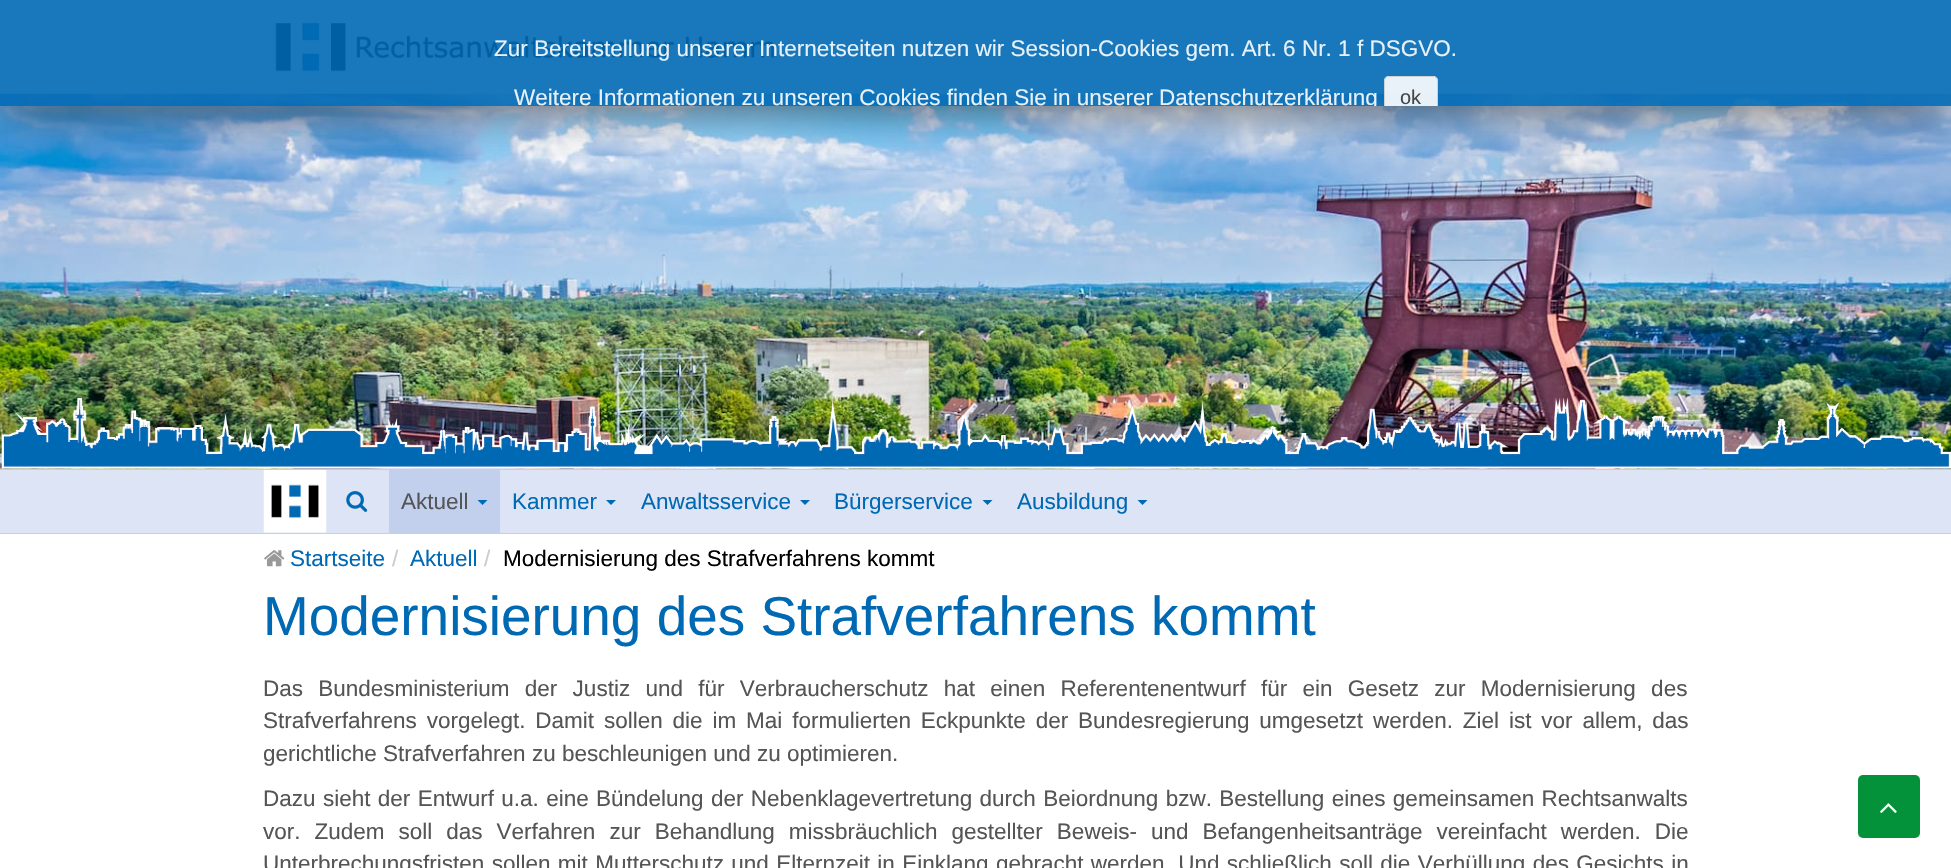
#include "include/core/SkBlurTypes.h"
#include "include/core/SkCanvas.h"
#include "include/core/SkData.h"
#include "include/core/SkFont.h"
#include "include/core/SkFontMgr.h"
#include "include/core/SkImage.h"
#include "include/core/SkMaskFilter.h"
#include "include/core/SkPaint.h"
#include "include/core/SkPathBuilder.h"
#include "include/core/SkTextBlob.h"
#include "include/effects/SkDashPathEffect.h"
#include "include/effects/SkGradientShader.h"
#include "include/utils/SkParsePath.h"

extern sk_sp<SkFontMgr> fontMgr;

void draw(SkCanvas* canvas) {
    SkPaint p;
    p.setAntiAlias(true);
    auto font = [&](const char* family, int weight, float size, bool italic = false) {
        SkFontStyle style(weight, SkFontStyle::kNormal_Width,
            italic ? SkFontStyle::kItalic_Slant : SkFontStyle::kUpright_Slant);
        SkFont result(fontMgr->matchFamilyStyle(family, style), size);
        result.setSubpixel(true);
        return result;
    };
    auto drawTracked = [&](const char* s, float x, float y, const SkFont& font, const SkPaint& ink, float letter, float word) {
        std::vector<SkGlyphID> glyphs(font.countText(s, strlen(s), SkTextEncoding::kUTF8));
        std::vector<float> xs(glyphs.size());
        font.textToGlyphs(s, strlen(s), SkTextEncoding::kUTF8, glyphs);
        font.getXPos(glyphs, xs, x);
        float extra = 0;
        for (size_t i = 0; i < glyphs.size(); i++) {
            xs[i] += extra;
            extra += letter + word * (glyphs[i] == font.unicharToGlyph(' '));
        }
        canvas->drawTextBlob(SkTextBlob::MakeFromPosHGlyphs(glyphs, xs, y, font), 0, 0, ink);
    };
    auto drawPhoto = [&](const char* path, float l, float t, float r, float b) {
        auto image = SkImages::DeferredFromEncodedData(SkData::MakeFromFileName(path));
        canvas->drawImageRect(image, SkRect::MakeLTRB(l, t, r, b), SkSamplingOptions());
    };
    canvas->clear(0xFFFFFFFF);
    drawPhoto("media/1.png", 275, 23, 774, 72);
    drawPhoto("media/2.png", 0, 93, 1951, 469);
    canvas->save();
    canvas->clipRect(SkRect::MakeLTRB(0, 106, 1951, 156));
    p.setColor(0xE6444444);
    p.setMaskFilter(SkMaskFilter::MakeBlur(kNormal_SkBlurStyle, 25));
    canvas->drawRect(SkRect::MakeLTRB(0, 0, 1951, 106), p);
    p.setMaskFilter(nullptr);
    canvas->restore();
    p.setColor(0xE60069B4);
    canvas->drawRect(SkRect::MakeLTRB(0, 0, 1951, 106), p);
    auto font1 = font("Liberation Sans", 400, 22.5f);
    p.setColor(0xFFE8F1F8);
    canvas->drawString("Zur Bereitstellung unserer Internetseiten nutzen wir Session-Cookies gem. Art. 6 Nr. 1 f DSGVO.", 494, 56, font1, p);
    canvas->drawString("Weitere Informationen zu unseren Cookies finden Sie in unserer", 514, 105, font1, p);
    canvas->save();
    canvas->clipRect(SkRect::MakeLTRB(0, 0, 1951, 106));
    canvas->drawString("Datenschutzerklärung", 1159, 105, font1, p);
    canvas->restore();
    p.setColor(0xE6FFFFFF);
    canvas->drawPath(SkPathBuilder().moveTo(1389, 76).lineTo(1433, 76).cubicTo(1436, 76, 1438, 78, 1438, 81).lineTo(1438, 106).lineTo(1384, 106).lineTo(1384, 81).cubicTo(1384, 78, 1386, 76, 1389, 76).close().detach(), p);
    canvas->save();
    canvas->clipRect(SkRect::MakeLTRB(0, 0, 1951, 106));
    p.setStyle(SkPaint::kStroke_Style);
    p.setStrokeWidth(1);
    p.setColor(0xE6CCCCCC);
    canvas->drawRoundRect(SkRect::MakeLTRB(1384.5f, 76.5f, 1437.5f, 120.5f), 4.5f, 4.5f, p);
    canvas->restore();
    auto font2 = font("Liberation Sans", 400, 20);
    p.setStyle(SkPaint::kFill_Style);
    p.setColor(0xFF454647);
    canvas->drawString("ok", 1400, 104, font2, p);
    drawPhoto("media/3.png", 0, 397, 1951, 469);
    {
        const struct { float l, t, r, b; SkColor color; } items[] = {
            {0, 470, 1951, 533, 0xFFDCE4F5},
            {0, 469, 1951, 470, 0xFFC2D0EE},
            {0, 533, 1951, 534, 0xFFC2D0EE},
        };
        for (auto [l, t, r, b, color] : items) {
            p.setColor(color);
            canvas->drawRect(SkRect::MakeLTRB(l, t, r, b), p);
        }
    }
    drawPhoto("media/4.png", 263, 470, 327, 533);
    drawPhoto("media/5.png", 346, 491, 368, 512);
    canvas->drawRect(SkRect::MakeLTRB(389, 470, 500, 533), p);
    p.setColor(0xFF555555);
    canvas->drawString("Aktuell", 401, 509, font1, p);
    p.setColor(0xFF0069B4);
    canvas->drawPath(SkPathBuilder().moveTo(477.5f, 500).lineTo(487.5f, 500).lineTo(482.5f, 505).close().detach(), p);
    canvas->drawString("Kammer", 512, 509, font1, p);
    canvas->drawPath(SkPathBuilder().moveTo(606, 500).lineTo(616, 500).lineTo(611, 505).close().detach(), p);
    canvas->drawString("Anwaltsservice", 641, 509, font1, p);
    canvas->drawPath(SkPathBuilder().moveTo(800, 500).lineTo(810, 500).lineTo(805, 505).close().detach(), p);
    canvas->drawString("Bürgerservice", 834, 509, font1, p);
    canvas->drawPath(SkPathBuilder().moveTo(982.5f, 500).lineTo(992.5f, 500).lineTo(987.5f, 505).close().detach(), p);
    canvas->drawString("Ausbildung", 1017, 509, font1, p);
    canvas->drawPath(SkPathBuilder().moveTo(1137.5f, 500).lineTo(1147.5f, 500).lineTo(1142.5f, 505).close().detach(), p);
    drawPhoto("media/6.png", 264, 550, 285, 567);
    canvas->drawString("Startseite", 290, 566, font1, p);
    p.setColor(0xFFCCCCCC);
    canvas->drawString("/", 392, 566, font1, p);
    p.setColor(0xFF0069B4);
    canvas->drawString("Aktuell", 410, 566, font1, p);
    p.setColor(0xFFCCCCCC);
    canvas->drawString("/", 484, 566, font1, p);
    p.setColor(0xFF000000);
    canvas->drawString("Modernisierung des Strafverfahrens kommt", 503, 566, font1, p);
    auto font3 = font("Liberation Sans", 400, 54.9f);
    p.setColor(0xFF0069B4);
    canvas->drawString("Modernisierung des Strafverfahrens kommt", 263, 635, font3, p);
    p.setColor(0xFF555555);
    drawTracked("Das Bundesministerium der Justiz und für Verbraucherschutz hat einen Referentenentwurf für ein Gesetz zur Modernisierung des", 263, 696, font1, p, 0, 9);
    drawTracked("Strafverfahrens vorgelegt. Damit sollen die im Mai formulierten Eckpunkte der Bundesregierung umgesetzt werden. Ziel ist vor allem, das", 263, 728, font1, p, 0, 3.6f);
    canvas->drawString("gerichtliche Strafverfahren zu beschleunigen und zu optimieren.", 263, 761, font1, p);
    drawTracked("Dazu sieht der Entwurf u.a. eine Bündelung der Nebenklagevertretung durch Beiordnung bzw. Bestellung eines gemeinsamen Rechtsanwalts", 263, 806, font1, p, 0, 1.1f);
    drawTracked("vor. Zudem soll das Verfahren zur Behandlung missbräuchlich gestellter Beweis- und Befangenheitsanträge vereinfacht werden. Die", 263, 839, font1, p, 0, 7.75f);
    drawTracked("Unterbrechungsfristen sollen mit Mutterschutz und Elternzeit in Einklang gebracht werden. Und schließlich soll die Verhüllung des Gesichts in", 263, 871, font1, p, 0, 1.1f);
    p.setColor(0xFF039239);
    canvas->drawRoundRect(SkRect::MakeLTRB(1858, 775, 1920, 838), 5, 5, p);
    drawPhoto("media/7.png", 1880, 803, 1897, 813);
}
